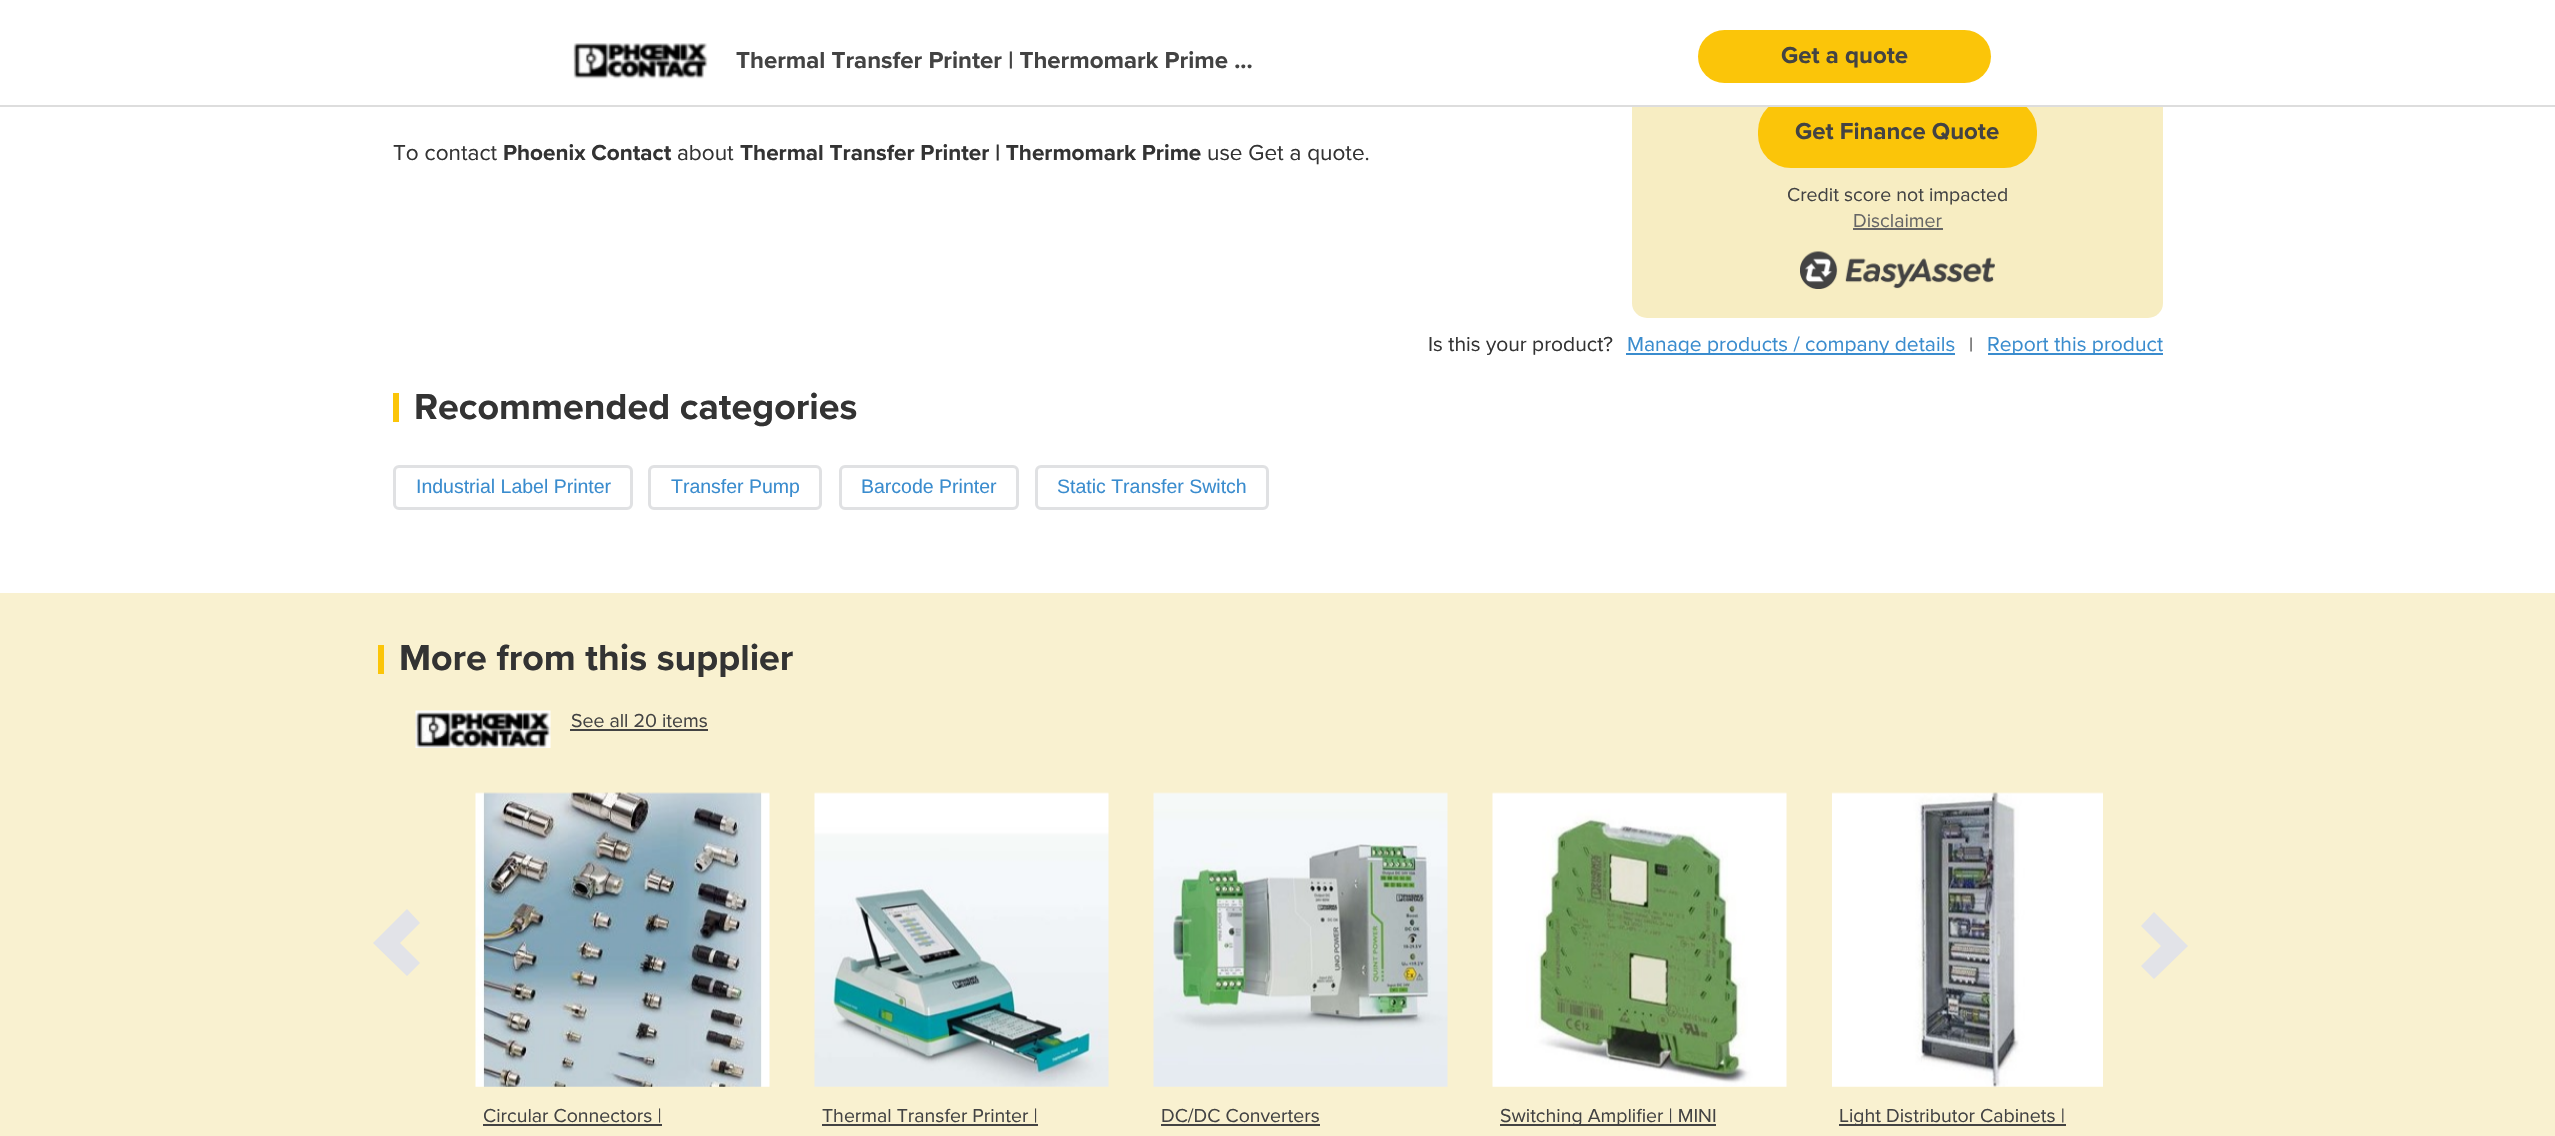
#include "include/core/SkBlurTypes.h"
#include "include/core/SkCanvas.h"
#include "include/core/SkData.h"
#include "include/core/SkFont.h"
#include "include/core/SkFontMgr.h"
#include "include/core/SkImage.h"
#include "include/core/SkMaskFilter.h"
#include "include/core/SkPaint.h"
#include "include/core/SkPathBuilder.h"
#include "include/core/SkTextBlob.h"
#include "include/effects/SkDashPathEffect.h"
#include "include/effects/SkGradientShader.h"
#include "include/utils/SkParsePath.h"

extern sk_sp<SkFontMgr> fontMgr;

void draw(SkCanvas* canvas) {
    SkPaint p;
    p.setAntiAlias(true);
    auto font = [&](const char* family, int weight, float size, bool italic = false) {
        SkFontStyle style(weight, SkFontStyle::kNormal_Width,
            italic ? SkFontStyle::kItalic_Slant : SkFontStyle::kUpright_Slant);
        SkFont result(fontMgr->matchFamilyStyle(family, style), size);
        result.setSubpixel(true);
        return result;
    };
    auto drawPhoto = [&](const char* path, float l, float t, float r, float b) {
        auto image = SkImages::DeferredFromEncodedData(SkData::MakeFromFileName(path));
        canvas->drawImageRect(image, SkRect::MakeLTRB(l, t, r, b), SkSamplingOptions());
    };
    canvas->clear(0xFFFFFFFF);
    p.setColor(0xFFF7EDC2);
    canvas->drawRoundRect(SkRect::MakeLTRB(1632, -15, 2163, 318), 15, 15, p);
    p.setColor(0xFFFBC509);
    canvas->drawRoundRect(SkRect::MakeLTRB(1758, 98, 2037, 168), 33, 33, p);
    p.setColor(0xFFFFFFFF);
    canvas->drawRect(SkRect::MakeLTRB(1632, 0, 2163, 105), p);
    p.setColor(0xFFDDDDDD);
    canvas->drawRect(SkRect::MakeLTRB(0, 105, 2555, 107), p);
    drawPhoto("media/1.png", 573, 43, 708, 79);
    auto font1 = font("Proxima Nova", 700, 24);
    p.setColor(0xFF434343);
    canvas->drawString("Thermal Transfer Printer | Thermomark Prime ...", 736, 68, font1, p);
    p.setColor(0xFFFBC509);
    canvas->drawRoundRect(SkRect::MakeLTRB(1698, 30, 1991, 83), 26.5f, 26.5f, p);
    p.setColor(0xFF434343);
    canvas->drawString("Get a quote", 1781, 63, font1, p);
    auto font2 = font("Proxima Nova", 400, 22.5f);
    p.setColor(0xFF333333);
    canvas->drawString("To contact", 393, 160, font2, p);
    auto font3 = font("Proxima Nova", 700, 22.5f);
    canvas->drawString("Phoenix Contact", 503, 160, font3, p);
    canvas->drawString("about", 677, 160, font2, p);
    canvas->drawString("Thermal Transfer Printer | Thermomark Prime", 740, 160, font3, p);
    canvas->drawString("use Get a quote.", 1207, 160, font2, p);
    auto font4 = font("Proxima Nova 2", 700, 24);
    p.setColor(0xFF434343);
    canvas->drawString("Get Finance Quote", 1795, 139, font4, p);
    auto font5 = font("Proxima Nova 2", 400, 19.5f);
    canvas->drawString("Credit score not impacted", 1787, 201, font5, p);
    p.setColor(0xFF666666);
    canvas->drawString("Disclaimer", 1853, 227, font5, p);
    canvas->drawRect(SkRect::MakeLTRB(1853, 228, 1943, 230), p);
    drawPhoto("media/2.png", 1800, 251, 1995, 289);
    auto font6 = font("Proxima Nova", 400, 21);
    p.setColor(0xFF333333);
    canvas->drawString("Is this your product?", 1428, 351, font6, p);
    p.setColor(0xFF3A8CCE);
    canvas->drawRect(SkRect::MakeLTRB(1626, 353, 1955, 355), p);
    canvas->drawString("Manage products / company details", 1627, 351, font6, p);
    auto font7 = font("Proxima Nova", 400, 19.5f);
    p.setColor(0xFF434343);
    canvas->drawString("|", 1969, 351, font7, p);
    p.setColor(0xFF3A8CCE);
    canvas->drawRect(SkRect::MakeLTRB(1988, 353, 2163, 355), p);
    canvas->drawString("Report this product", 1987, 351, font6, p);
    p.setColor(0xFFFBC509);
    canvas->drawRect(SkRect::MakeLTRB(393, 393, 399, 422), p);
    auto font8 = font("Proxima Nova", 700, 37.5f);
    p.setColor(0xFF333333);
    canvas->drawString("Recommended categories", 414, 419, font8, p);
    p.setStyle(SkPaint::kStroke_Style);
    p.setStrokeWidth(3);
    p.setColor(0xFFE0E1E3);
    canvas->drawRoundRect(SkRect::MakeLTRB(394.5f, 466.5f, 631.5f, 508.5f), 4.5f, 4.5f, p);
    auto font9 = font("Liberation Sans", 400, 19.5f);
    p.setStyle(SkPaint::kFill_Style);
    p.setColor(0xFF3A8CCE);
    canvas->drawString("Industrial Label Printer", 416, 493, font9, p);
    p.setStyle(SkPaint::kStroke_Style);
    p.setColor(0xFFE0E1E3);
    canvas->drawRoundRect(SkRect::MakeLTRB(649.5f, 466.5f, 820.5f, 508.5f), 4.5f, 4.5f, p);
    p.setStyle(SkPaint::kFill_Style);
    p.setColor(0xFF3A8CCE);
    canvas->drawString("Transfer Pump", 671, 493, font9, p);
    p.setStyle(SkPaint::kStroke_Style);
    p.setColor(0xFFE0E1E3);
    canvas->drawRoundRect(SkRect::MakeLTRB(840.5f, 466.5f, 1017.5f, 508.5f), 4.5f, 4.5f, p);
    p.setStyle(SkPaint::kFill_Style);
    p.setColor(0xFF3A8CCE);
    canvas->drawString("Barcode Printer", 861, 493, font9, p);
    p.setStyle(SkPaint::kStroke_Style);
    p.setColor(0xFFE0E1E3);
    canvas->drawRoundRect(SkRect::MakeLTRB(1036.5f, 466.5f, 1267.5f, 508.5f), 4.5f, 4.5f, p);
    p.setStyle(SkPaint::kFill_Style);
    p.setColor(0xFF3A8CCE);
    canvas->drawString("Static Transfer Switch", 1057, 493, font9, p);
    p.setColor(0xFFF9F1D0);
    canvas->drawRect(SkRect::MakeLTRB(0, 593, 2555, 1136), p);
    p.setColor(0xFFFBC509);
    canvas->drawRect(SkRect::MakeLTRB(378, 645, 384, 674), p);
    p.setColor(0xFF333333);
    canvas->drawString("More from this supplier", 399, 670, font8, p);
    drawPhoto("media/3.png", 415, 710, 551, 748);
    p.setColor(0xFF434343);
    canvas->drawString("See all 20 items", 571, 727, font7, p);
    canvas->drawRect(SkRect::MakeLTRB(570, 729, 708, 731), p);
    p.setColor(0xFFE2E3E8);
    canvas->drawPath(SkPathBuilder().moveTo(407, 976).lineTo(420, 963).lineTo(400, 943).lineTo(420, 923).lineTo(407, 909).lineTo(373, 943).close().detach(), p);
    canvas->drawPath(SkPathBuilder().moveTo(2154, 979).lineTo(2141, 966).lineTo(2161, 946).lineTo(2141, 926).lineTo(2154, 912).lineTo(2188, 946).close().detach(), p);
    drawPhoto("media/4.png", 475, 792, 770, 1087);
    p.setColor(0xFF434343);
    canvas->drawString("Circular Connectors |", 483, 1122, font7, p);
    canvas->drawRect(SkRect::MakeLTRB(483, 1124, 662, 1126), p);
    drawPhoto("media/5.png", 814, 792, 1109, 1087);
    canvas->drawString("Thermal Transfer Printer |", 822, 1122, font7, p);
    canvas->drawRect(SkRect::MakeLTRB(822, 1124, 1038, 1126), p);
    drawPhoto("media/6.png", 1153, 792, 1448, 1087);
    canvas->drawString("DC/DC Converters", 1161, 1122, font7, p);
    canvas->drawRect(SkRect::MakeLTRB(1161, 1124, 1320, 1126), p);
    drawPhoto("media/7.png", 1492, 792, 1787, 1087);
    canvas->drawRect(SkRect::MakeLTRB(1500, 1124, 1716, 1126), p);
    canvas->drawString("Switching Amplifier | MINI", 1500, 1122, font7, p);
    drawPhoto("media/8.png", 1832, 792, 2103, 1087);
    canvas->drawRect(SkRect::MakeLTRB(1839, 1124, 2066, 1126), p);
    canvas->drawString("Light Distributor Cabinets |", 1839, 1122, font7, p);
}
